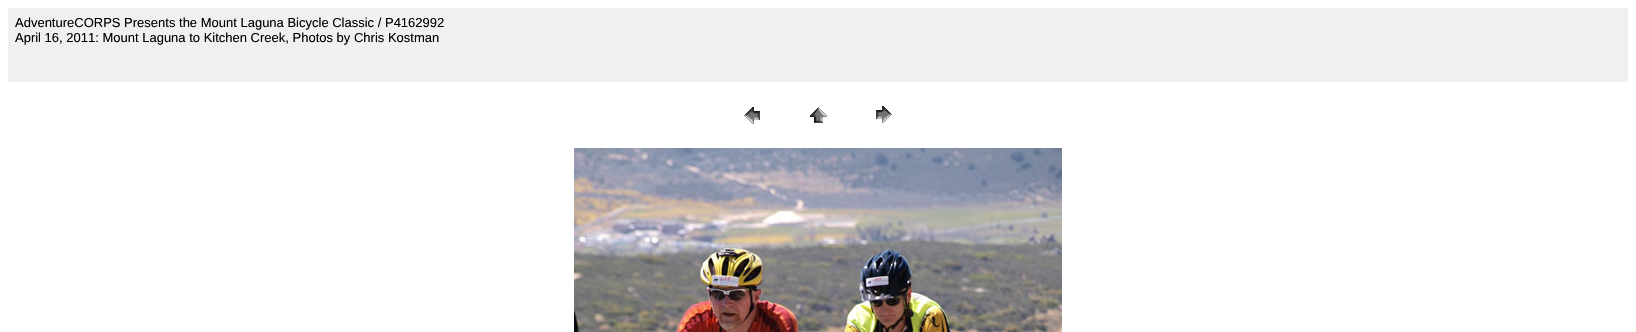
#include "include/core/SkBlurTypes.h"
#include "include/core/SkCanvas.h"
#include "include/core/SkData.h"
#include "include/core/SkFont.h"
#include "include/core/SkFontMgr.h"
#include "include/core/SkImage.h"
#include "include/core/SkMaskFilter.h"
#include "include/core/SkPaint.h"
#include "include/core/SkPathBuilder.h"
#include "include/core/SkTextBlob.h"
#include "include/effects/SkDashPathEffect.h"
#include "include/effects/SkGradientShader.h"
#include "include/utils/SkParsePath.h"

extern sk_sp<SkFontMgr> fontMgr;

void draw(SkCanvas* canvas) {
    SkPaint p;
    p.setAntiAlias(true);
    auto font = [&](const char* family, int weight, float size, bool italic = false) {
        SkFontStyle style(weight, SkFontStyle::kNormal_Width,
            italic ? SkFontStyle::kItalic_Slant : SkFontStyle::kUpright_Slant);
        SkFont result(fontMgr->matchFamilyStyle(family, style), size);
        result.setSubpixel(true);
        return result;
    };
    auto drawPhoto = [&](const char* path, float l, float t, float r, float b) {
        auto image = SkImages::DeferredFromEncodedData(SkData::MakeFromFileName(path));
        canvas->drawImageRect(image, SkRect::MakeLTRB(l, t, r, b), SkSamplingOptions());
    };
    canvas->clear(0xFFFFFFFF);
    p.setColor(0xFFF0F0F0);
    canvas->drawRect(SkRect::MakeLTRB(8, 8, 1628, 82), p);
    auto font1 = font("Liberation Sans", 400, 13);
    p.setColor(0xFF000000);
    canvas->drawString("AdventureCORPS Presents the Mount Laguna Bicycle Classic / P4162992", 15, 27, font1, p);
    canvas->drawString("April 16, 2011: Mount Laguna to Kitchen Creek, Photos by Chris Kostman", 15, 42, font1, p);
    drawPhoto("media/1.png", 744, 107, 760, 124);
    drawPhoto("media/2.png", 810, 107, 827, 123);
    drawPhoto("media/3.png", 876, 106, 892, 123);
    drawPhoto("media/4.png", 574, 148, 1062, 332);
}
